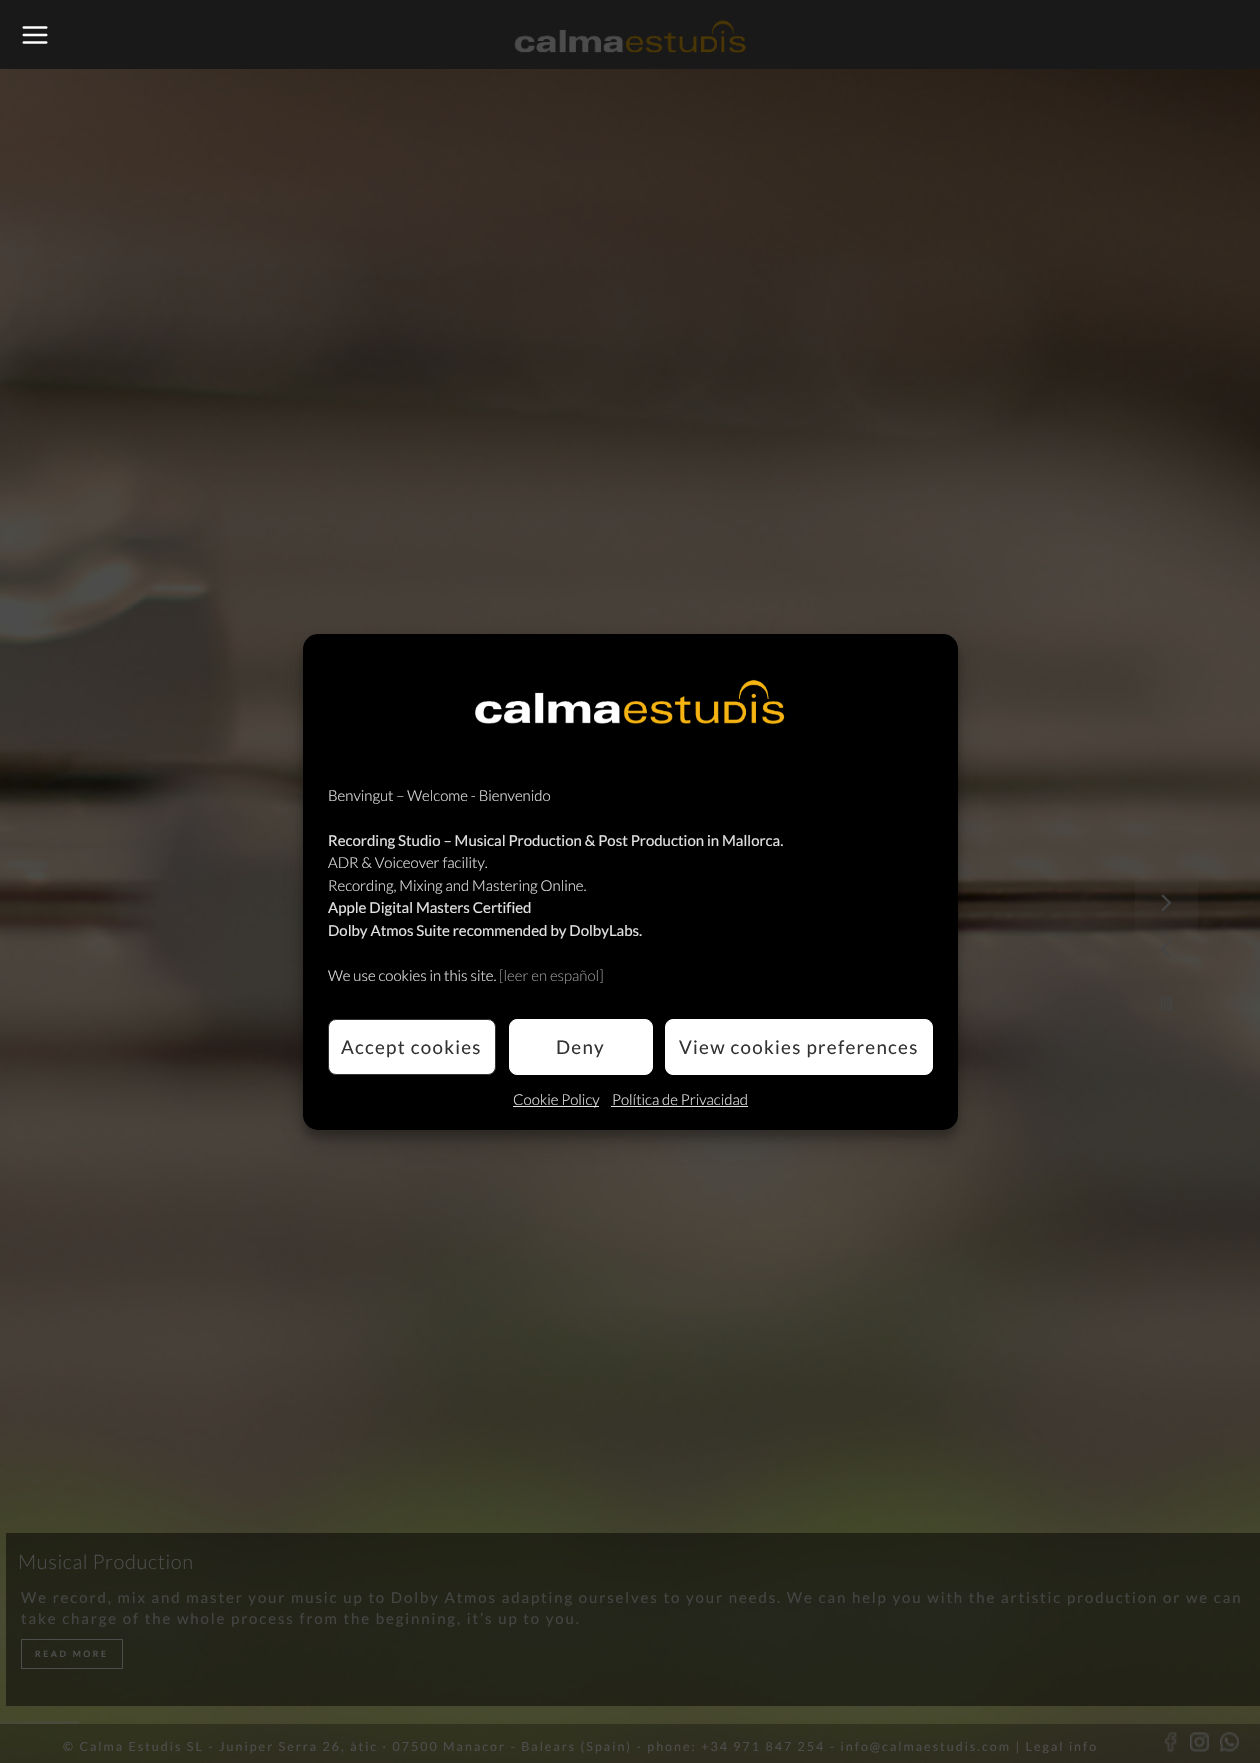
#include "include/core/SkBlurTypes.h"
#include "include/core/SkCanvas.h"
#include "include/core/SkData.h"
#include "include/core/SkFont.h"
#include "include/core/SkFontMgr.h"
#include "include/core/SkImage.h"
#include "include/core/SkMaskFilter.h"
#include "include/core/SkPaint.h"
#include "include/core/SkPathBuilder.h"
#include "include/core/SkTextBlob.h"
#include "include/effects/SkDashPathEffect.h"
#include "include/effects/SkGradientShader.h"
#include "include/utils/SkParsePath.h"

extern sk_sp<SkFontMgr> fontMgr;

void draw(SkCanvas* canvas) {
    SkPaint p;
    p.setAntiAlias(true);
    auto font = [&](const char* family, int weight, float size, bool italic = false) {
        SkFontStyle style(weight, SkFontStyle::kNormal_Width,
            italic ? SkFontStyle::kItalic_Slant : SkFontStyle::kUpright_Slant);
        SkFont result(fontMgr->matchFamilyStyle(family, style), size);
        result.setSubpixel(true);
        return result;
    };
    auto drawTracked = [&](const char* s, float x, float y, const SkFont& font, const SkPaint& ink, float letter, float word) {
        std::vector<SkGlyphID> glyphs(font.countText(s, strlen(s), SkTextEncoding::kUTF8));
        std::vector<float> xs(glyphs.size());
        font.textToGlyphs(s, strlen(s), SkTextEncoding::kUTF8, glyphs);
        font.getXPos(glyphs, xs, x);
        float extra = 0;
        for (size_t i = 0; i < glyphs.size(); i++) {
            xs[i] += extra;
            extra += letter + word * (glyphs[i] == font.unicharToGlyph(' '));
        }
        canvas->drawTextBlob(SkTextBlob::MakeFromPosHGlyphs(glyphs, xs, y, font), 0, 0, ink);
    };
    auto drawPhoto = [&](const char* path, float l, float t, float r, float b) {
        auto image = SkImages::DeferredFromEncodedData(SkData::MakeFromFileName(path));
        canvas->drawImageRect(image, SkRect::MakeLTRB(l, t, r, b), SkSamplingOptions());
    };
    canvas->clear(0xFFFFFFFF);
    p.setColor(0xFF191919);
    canvas->drawRect(SkRect::MakeLTRB(0, 0, 1260, 69), p);
    drawPhoto("media/1.png", 514, 20, 746, 53);
    drawPhoto("media/2.png", 22, 26, 48, 44);
    drawPhoto("media/3.png", 0, 69, 1260, 1763);
    p.setColor(0x3B000000);
    p.setMaskFilter(SkMaskFilter::MakeBlur(kNormal_SkBlurStyle, 4));
    canvas->drawRoundRect(SkRect::MakeLTRB(303, 641, 958, 1138), 15, 15, p);
    p.setMaskFilter(nullptr);
    p.setColor(0x30000000);
    p.setMaskFilter(SkMaskFilter::MakeBlur(kNormal_SkBlurStyle, 12.5f));
    canvas->drawRoundRect(SkRect::MakeLTRB(303, 646, 958, 1143), 15, 15, p);
    p.setMaskFilter(nullptr);
    p.setColor(0xFF000000);
    canvas->drawRoundRect(SkRect::MakeLTRB(303, 634, 958, 1130), 15, 15, p);
    drawPhoto("media/4.png", 475, 679, 785, 725);
    auto font1 = font("Lato", 300, 15);
    p.setColor(0xFFE2E2E2);
    canvas->drawString("Benvingut – Welcome - Bienvenido", 328, 801, font1, p);
    auto font2 = font("Lato", 400, 15);
    canvas->drawString("Recording Studio – Musical Production & Post Production in Mallorca.", 328, 846, font2, p);
    canvas->drawString("ADR & Voiceover facility.", 328, 868, font1, p);
    canvas->drawString("Recording, Mixing and Mastering Online.", 328, 891, font1, p);
    canvas->drawString("Apple Digital Masters Certified", 328, 913, font2, p);
    canvas->drawString("Dolby Atmos Suite recommended by DolbyLabs.", 328, 936, font2, p);
    canvas->drawString("We use cookies in this site.", 328, 981, font1, p);
    p.setColor(0xFF999999);
    canvas->drawString("[leer en español]", 499, 981, font1, p);
    p.setColor(0xFFFFFFFF);
    canvas->drawRoundRect(SkRect::MakeLTRB(328.5f, 1019.5f, 495.5f, 1074.5f), 7.5f, 7.5f, p);
    p.setStyle(SkPaint::kStroke_Style);
    p.setStrokeWidth(1);
    p.setColor(0xFF333333);
    canvas->drawRoundRect(SkRect::MakeLTRB(328.5f, 1019.5f, 495.5f, 1074.5f), 7.5f, 7.5f, p);
    auto font3 = font("Lato", 400, 18.75f);
    p.setStyle(SkPaint::kFill_Style);
    drawTracked("Accept cookies", 341, 1054, font3, p, 1.25f, 0);
    p.setColor(0xFFFFFFFF);
    canvas->drawRoundRect(SkRect::MakeLTRB(509.5f, 1019.5f, 652.5f, 1074.5f), 7.5f, 7.5f, p);
    p.setStyle(SkPaint::kStroke_Style);
    canvas->drawRoundRect(SkRect::MakeLTRB(509.5f, 1019.5f, 652.5f, 1074.5f), 7.5f, 7.5f, p);
    p.setStyle(SkPaint::kFill_Style);
    p.setColor(0xFF333333);
    drawTracked("Deny", 556, 1054, font3, p, 1.25f, 0);
    p.setColor(0xFFFFFFFF);
    canvas->drawRoundRect(SkRect::MakeLTRB(665.5f, 1019.5f, 932.5f, 1074.5f), 7.5f, 7.5f, p);
    p.setStyle(SkPaint::kStroke_Style);
    canvas->drawRoundRect(SkRect::MakeLTRB(665.5f, 1019.5f, 932.5f, 1074.5f), 7.5f, 7.5f, p);
    p.setStyle(SkPaint::kFill_Style);
    p.setColor(0xFF333333);
    drawTracked("View cookies preferences", 679, 1054, font3, p, 1.25f, 0);
    p.setColor(0xFFE2E2E2);
    canvas->drawRect(SkRect::MakeLTRB(513, 1106, 599, 1107), p);
    canvas->drawString("Cookie Policy", 513, 1105, font1, p);
    canvas->drawString("Política de Privacidad", 612, 1105, font1, p);
    canvas->drawRect(SkRect::MakeLTRB(611, 1106, 748, 1107), p);
    p.setColor(0x1A4D4D4D);
    canvas->drawRect(SkRect::MakeLTRB(1135, 880, 1198, 932), p);
    drawPhoto("media/5.png", 1161, 894, 1172, 912);
    drawPhoto("media/6.png", 1161, 941, 1171, 958);
    drawPhoto("media/7.png", 1161, 996, 1172, 1010);
    p.setColor(0x80000000);
    canvas->drawRect(SkRect::MakeLTRB(6, 1533, 1260, 1706), p);
    auto font4 = font("Lato", 300, 20);
    p.setColor(0xFF4D4D4D);
    drawTracked("Musical Production", 18, 1569, font4, p, 0.6f, 0);
    p.setColor(0xFF444542);
    drawTracked("We record, mix and master your music up to Dolby Atmos adapting ourselves to your needs. We can help you with the artistic production or we can", 21, 1603, font2, p, 1.88f, 0);
    drawTracked("take charge of the whole process from the beginning, it’s up to you.", 21, 1624, font2, p, 1.88f, 0);
    p.setStyle(SkPaint::kStroke_Style);
    p.setColor(0xFF4D4D4D);
    canvas->drawRect(SkRect::MakeLTRB(21.5f, 1639.5f, 122.5f, 1668.5f), p);
    auto font5 = font("Lato", 700, 8.75f);
    p.setStyle(SkPaint::kFill_Style);
    drawTracked("READ MORE", 35, 1657, font5, p, 2.5f, 0);
    p.setColor(0x4D000000);
    canvas->drawRect(SkRect::MakeLTRB(0, 1724, 1260, 1763), p);
    auto font6 = font("Lato", 400, 12.5f);
    p.setColor(0xFF4D4D4D);
    drawTracked("© Calma Estudis SL - Juniper Serra 26, àtic · 07500 Manacor - Balears (Spain) - phone: +34 971 847 254 - info@calmaestudis.com | Legal info", 63, 1751, font6, p, 2, 0);
    drawPhoto("media/8.png", 1164, 1732, 1177, 1752);
    drawPhoto("media/9.png", 1190, 1732, 1209, 1752);
    drawPhoto("media/10.png", 1220, 1732, 1239, 1752);
}
